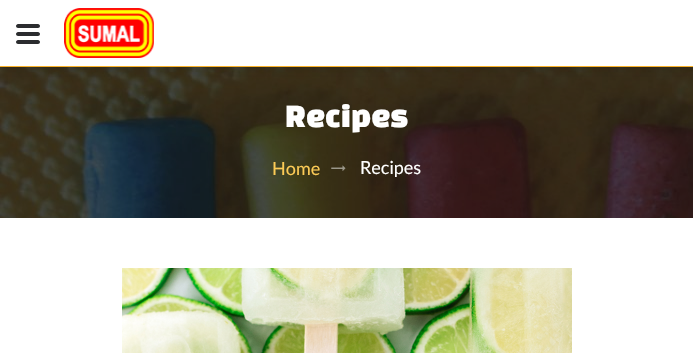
#include "include/core/SkBlurTypes.h"
#include "include/core/SkCanvas.h"
#include "include/core/SkData.h"
#include "include/core/SkFont.h"
#include "include/core/SkFontMgr.h"
#include "include/core/SkImage.h"
#include "include/core/SkMaskFilter.h"
#include "include/core/SkPaint.h"
#include "include/core/SkPathBuilder.h"
#include "include/core/SkTextBlob.h"
#include "include/effects/SkDashPathEffect.h"
#include "include/effects/SkGradientShader.h"
#include "include/utils/SkParsePath.h"

extern sk_sp<SkFontMgr> fontMgr;

void draw(SkCanvas* canvas) {
    SkPaint p;
    p.setAntiAlias(true);
    auto font = [&](const char* family, int weight, float size, bool italic = false) {
        SkFontStyle style(weight, SkFontStyle::kNormal_Width,
            italic ? SkFontStyle::kItalic_Slant : SkFontStyle::kUpright_Slant);
        SkFont result(fontMgr->matchFamilyStyle(family, style), size);
        result.setSubpixel(true);
        return result;
    };
    auto drawPhoto = [&](const char* path, float l, float t, float r, float b) {
        auto image = SkImages::DeferredFromEncodedData(SkData::MakeFromFileName(path));
        canvas->drawImageRect(image, SkRect::MakeLTRB(l, t, r, b), SkSamplingOptions());
    };
    canvas->clear(0xFFFFFFFF);
    drawPhoto("media/2.png", 0, 67, 693, 218);
    p.setColor(0x2B000000);
    p.setMaskFilter(SkMaskFilter::MakeBlur(kNormal_SkBlurStyle, 6.5f));
    canvas->drawRect(SkRect::MakeLTRB(1, 1, 692, 66), p);
    p.setMaskFilter(nullptr);
    p.setColor(0xFFFFFFFF);
    canvas->drawRect(SkRect::MakeLTRB(0, 0, 693, 66), p);
    p.setColor(0xFFF9B129);
    canvas->drawRect(SkRect::MakeLTRB(0, 66, 693, 67), p);
    p.setColor(0xFF2B2C2F);
    canvas->drawPath(SkPathBuilder().moveTo(38, 36).lineTo(18, 36).cubicTo(17, 36, 16, 35, 16, 34).cubicTo(16, 33, 17, 32, 18, 32).lineTo(38, 32).cubicTo(39, 32, 40, 33, 40, 34).cubicTo(40, 35, 39, 36, 38, 36).close().moveTo(38, 44).lineTo(18, 44).cubicTo(17, 44, 16, 43, 16, 42).cubicTo(16, 41, 17, 40, 18, 40).lineTo(38, 40).cubicTo(39, 40, 40, 41, 40, 42).cubicTo(40, 43, 39, 44, 38, 44).close().moveTo(38, 28).lineTo(18, 28).cubicTo(17, 28, 16, 27, 16, 26).cubicTo(16, 25, 17, 24, 18, 24).lineTo(38, 24).cubicTo(39, 24, 40, 25, 40, 26).cubicTo(40, 27, 39, 28, 38, 28).close().detach(), p);
    drawPhoto("media/1.png", 64, 8, 154, 58);
    auto font1 = font("Changa One", 400, 34);
    p.setColor(0xFFFFFFFF);
    canvas->drawString("Recipes", 285, 127, font1, p);
    auto font2 = font("Lato", 400, 18);
    p.setColor(0xFFFCCB56);
    canvas->drawString("Home", 272, 175, font2, p);
    drawPhoto("media/3.png", 331, 165, 346, 171);
    p.setColor(0xFFFFFFFF);
    canvas->drawString("Recipes", 360, 174, font2, p);
    drawPhoto("media/4.png", 122, 268, 572, 353);
}
